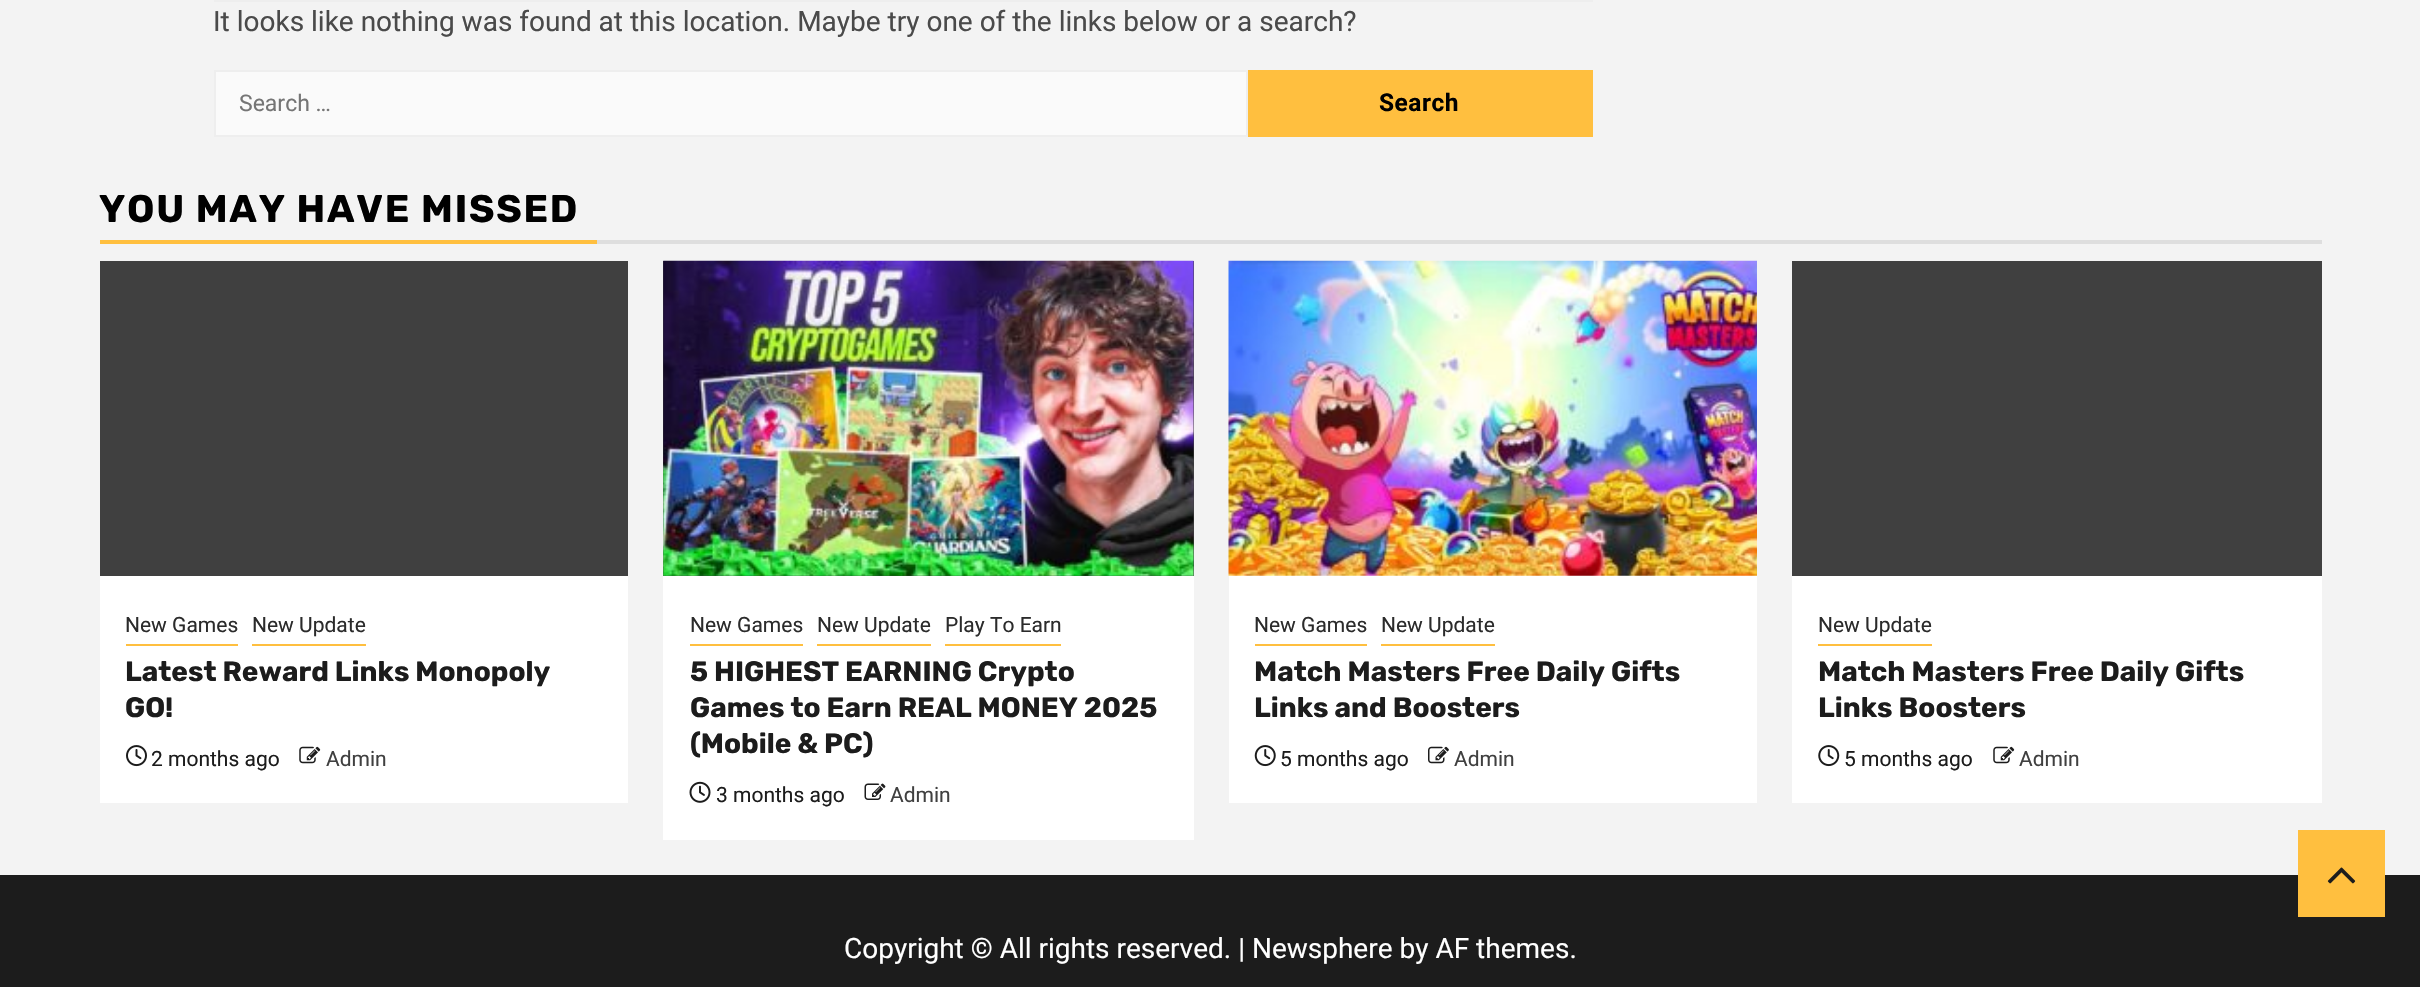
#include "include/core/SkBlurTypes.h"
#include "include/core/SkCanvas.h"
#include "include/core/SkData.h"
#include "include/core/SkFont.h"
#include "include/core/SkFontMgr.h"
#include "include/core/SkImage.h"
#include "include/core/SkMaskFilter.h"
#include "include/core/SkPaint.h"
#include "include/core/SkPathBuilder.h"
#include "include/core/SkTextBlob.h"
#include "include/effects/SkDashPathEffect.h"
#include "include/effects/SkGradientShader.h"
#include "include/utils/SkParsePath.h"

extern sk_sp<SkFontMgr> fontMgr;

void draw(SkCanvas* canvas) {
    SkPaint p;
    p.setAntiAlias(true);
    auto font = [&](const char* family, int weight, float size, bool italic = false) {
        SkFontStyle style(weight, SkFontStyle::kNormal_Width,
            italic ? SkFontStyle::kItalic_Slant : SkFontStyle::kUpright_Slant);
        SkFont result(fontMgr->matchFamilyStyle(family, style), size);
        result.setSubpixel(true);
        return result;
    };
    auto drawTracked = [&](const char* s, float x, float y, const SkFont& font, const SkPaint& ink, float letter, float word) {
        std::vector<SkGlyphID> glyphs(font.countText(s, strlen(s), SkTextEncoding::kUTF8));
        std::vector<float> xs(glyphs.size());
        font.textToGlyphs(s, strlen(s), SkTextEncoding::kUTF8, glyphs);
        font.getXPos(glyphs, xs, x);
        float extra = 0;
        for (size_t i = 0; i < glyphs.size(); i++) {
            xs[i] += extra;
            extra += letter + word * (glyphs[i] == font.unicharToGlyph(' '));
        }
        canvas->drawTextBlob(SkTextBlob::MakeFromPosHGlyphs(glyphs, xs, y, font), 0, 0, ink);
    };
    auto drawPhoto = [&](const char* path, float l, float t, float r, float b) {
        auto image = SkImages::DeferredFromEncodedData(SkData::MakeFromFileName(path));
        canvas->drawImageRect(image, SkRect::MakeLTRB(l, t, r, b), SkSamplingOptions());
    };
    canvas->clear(0xFFF3F3F3);
    p.setColor(0xFFEEEEEE);
    canvas->drawRect(SkRect::MakeLTRB(214, 0, 1593, 2), p);
    auto font1 = font("Roboto", 400, 28);
    p.setColor(0xFF4A4A4A);
    canvas->drawString("It looks like nothing was found at this location. Maybe try one of the links below or a search?", 213, 31, font1, p);
    p.setColor(0xFFFAFAFA);
    canvas->drawRect(SkRect::MakeLTRB(215, 71, 1247, 136), p);
    p.setStyle(SkPaint::kStroke_Style);
    p.setStrokeWidth(2);
    p.setColor(0xFFEEEEEE);
    canvas->drawRect(SkRect::MakeLTRB(215, 71, 1247, 136), p);
    auto font2 = font("Roboto", 400, 23);
    p.setStyle(SkPaint::kFill_Style);
    p.setColor(0xFF757575);
    canvas->drawString("Search …", 239, 111, font2, p);
    p.setColor(0xFFFFBF3F);
    canvas->drawRect(SkRect::MakeLTRB(1248, 70, 1593, 137), p);
    auto font3 = font("Roboto", 700, 24.5f);
    p.setColor(0xFF000000);
    drawTracked("Search", 1379, 111, font3, p, 0.5f, 0);
    p.setColor(0xFFFFBF3F);
    canvas->drawRect(SkRect::MakeLTRB(100, 240, 597, 244), p);
    auto font4 = font("Rubik", 700, 38.5f);
    p.setColor(0xFF000000);
    drawTracked("YOU MAY HAVE MISSED", 99, 222, font4, p, 1.75f, 0);
    {
        const struct { float l, t, r, b; SkColor color; } items[] = {
            {597, 240, 2322, 244, 0xFFDEDEDE},
            {100, 576, 628, 803, 0xFFFFFFFF},
            {100, 261, 628, 576, 0xFF404040},
            {126, 644, 238, 646, 0xFFFFBF3F},
        };
        for (auto [l, t, r, b, color] : items) {
            p.setColor(color);
            canvas->drawRect(SkRect::MakeLTRB(l, t, r, b), p);
        }
    }
    auto font5 = font("Roboto", 400, 21);
    p.setColor(0xFF2B2B2B);
    canvas->drawString("New Games", 125, 632, font5, p);
    p.setColor(0xFFFFBF3F);
    canvas->drawRect(SkRect::MakeLTRB(252, 644, 366, 646), p);
    p.setColor(0xFF2B2B2B);
    canvas->drawString("New Update", 252, 632, font5, p);
    auto font6 = font("Rubik", 700, 28);
    p.setColor(0xFF1C1C1C);
    canvas->drawString("Latest Reward Links Monopoly", 125, 681, font6, p);
    canvas->drawString("GO!", 125, 717, font6, p);
    drawPhoto("media/1.png", 126, 745, 147, 767);
    canvas->drawString("2 months ago", 151, 766, font5, p);
    drawPhoto("media/2.png", 299, 746, 321, 764);
    p.setColor(0xFF404040);
    canvas->drawString("Admin", 326, 766, font5, p);
    p.setColor(0xFFFFFFFF);
    canvas->drawRect(SkRect::MakeLTRB(663, 576, 1194, 840), p);
    p.setColor(0xFF404040);
    canvas->drawRect(SkRect::MakeLTRB(663, 261, 1194, 576), p);
    drawPhoto("media/3.png", 663, 260, 1194, 576);
    p.setColor(0xFFFFBF3F);
    canvas->drawRect(SkRect::MakeLTRB(690, 644, 803, 646), p);
    p.setColor(0xFF2B2B2B);
    canvas->drawString("New Games", 690, 632, font5, p);
    p.setColor(0xFFFFBF3F);
    canvas->drawRect(SkRect::MakeLTRB(817, 644, 931, 646), p);
    p.setColor(0xFF2B2B2B);
    canvas->drawString("New Update", 817, 632, font5, p);
    p.setColor(0xFFFFBF3F);
    canvas->drawRect(SkRect::MakeLTRB(945, 644, 1061, 646), p);
    p.setColor(0xFF2B2B2B);
    canvas->drawString("Play To Earn", 945, 632, font5, p);
    p.setColor(0xFF1C1C1C);
    {
        const struct { const char* s; float x, y; } items[] = {
            {"5 HIGHEST EARNING Crypto", 690, 681},
            {"Games to Earn REAL MONEY 2025", 690, 717},
            {"(Mobile & PC)", 690, 753},
        };
        for (auto [s, x, y] : items) {
            canvas->drawString(s, x, y, font6, p);
        }
    }
    drawPhoto("media/4.png", 689, 781, 711, 803);
    canvas->drawString("3 months ago", 716, 802, font5, p);
    drawPhoto("media/5.png", 864, 783, 886, 800);
    p.setColor(0xFF404040);
    canvas->drawString("Admin", 890, 802, font5, p);
    p.setColor(0xFFFFFFFF);
    canvas->drawRect(SkRect::MakeLTRB(1229, 575, 1757, 803), p);
    drawPhoto("media/6.png", 1228, 260, 1757, 576);
    p.setColor(0xFFFFBF3F);
    canvas->drawRect(SkRect::MakeLTRB(1255, 644, 1367, 646), p);
    p.setColor(0xFF2B2B2B);
    canvas->drawString("New Games", 1254, 632, font5, p);
    p.setColor(0xFFFFBF3F);
    canvas->drawRect(SkRect::MakeLTRB(1381, 644, 1495, 646), p);
    p.setColor(0xFF2B2B2B);
    canvas->drawString("New Update", 1381, 632, font5, p);
    p.setColor(0xFF1C1C1C);
    canvas->drawString("Match Masters Free Daily Gifts", 1254, 681, font6, p);
    canvas->drawString("Links and Boosters", 1254, 717, font6, p);
    drawPhoto("media/7.png", 1254, 745, 1276, 767);
    canvas->drawString("5 months ago", 1280, 766, font5, p);
    drawPhoto("media/8.png", 1428, 746, 1449, 764);
    p.setColor(0xFF404040);
    canvas->drawString("Admin", 1454, 766, font5, p);
    {
        const struct { float l, t, r, b; SkColor color; } items[] = {
            {1792, 576, 2322, 803, 0xFFFFFFFF},
            {1792, 261, 2322, 576, 0xFF404040},
            {1818, 644, 1932, 646, 0xFFFFBF3F},
        };
        for (auto [l, t, r, b, color] : items) {
            p.setColor(color);
            canvas->drawRect(SkRect::MakeLTRB(l, t, r, b), p);
        }
    }
    p.setColor(0xFF2B2B2B);
    canvas->drawString("New Update", 1818, 632, font5, p);
    p.setColor(0xFF1C1C1C);
    canvas->drawString("Match Masters Free Daily Gifts", 1818, 681, font6, p);
    canvas->drawString("Links Boosters", 1818, 717, font6, p);
    drawPhoto("media/9.png", 1818, 745, 1840, 767);
    canvas->drawString("5 months ago", 1844, 766, font5, p);
    drawPhoto("media/2.png", 1993, 746, 2015, 764);
    p.setColor(0xFF404040);
    canvas->drawString("Admin", 2019, 766, font5, p);
    p.setColor(0xFF1C1C1C);
    canvas->drawRect(SkRect::MakeLTRB(0, 875, 2420, 987), p);
    p.setColor(0xFFFFFFFF);
    canvas->drawString("Copyright © All rights reserved. | Newsphere by AF themes.", 844, 958, font1, p);
    p.setColor(0xFFFFBF3F);
    canvas->drawRect(SkRect::MakeLTRB(2298, 830, 2385, 917), p);
    drawPhoto("media/10.png", 2327, 867, 2356, 884);
}
